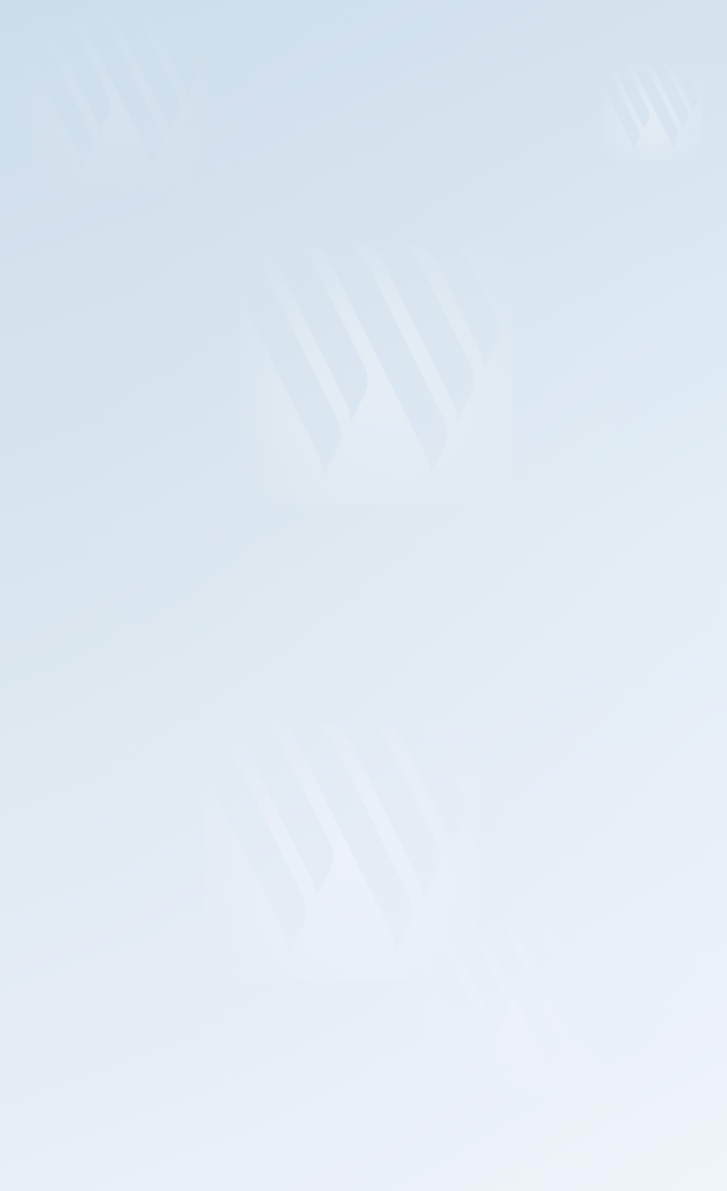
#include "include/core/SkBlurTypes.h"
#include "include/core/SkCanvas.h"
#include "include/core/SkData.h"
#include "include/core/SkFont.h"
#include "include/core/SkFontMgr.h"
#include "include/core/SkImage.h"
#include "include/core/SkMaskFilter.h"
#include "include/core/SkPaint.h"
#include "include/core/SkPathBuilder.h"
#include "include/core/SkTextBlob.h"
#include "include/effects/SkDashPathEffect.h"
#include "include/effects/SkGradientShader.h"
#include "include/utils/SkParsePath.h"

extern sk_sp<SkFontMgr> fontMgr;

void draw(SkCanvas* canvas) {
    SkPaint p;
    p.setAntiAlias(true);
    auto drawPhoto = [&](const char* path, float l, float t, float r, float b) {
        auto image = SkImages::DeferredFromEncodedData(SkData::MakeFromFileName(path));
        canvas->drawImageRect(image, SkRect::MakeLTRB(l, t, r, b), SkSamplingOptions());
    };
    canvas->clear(0xFFFFFFFF);
    drawPhoto("media/1.png", 0, 0, 727, 1191);
}
